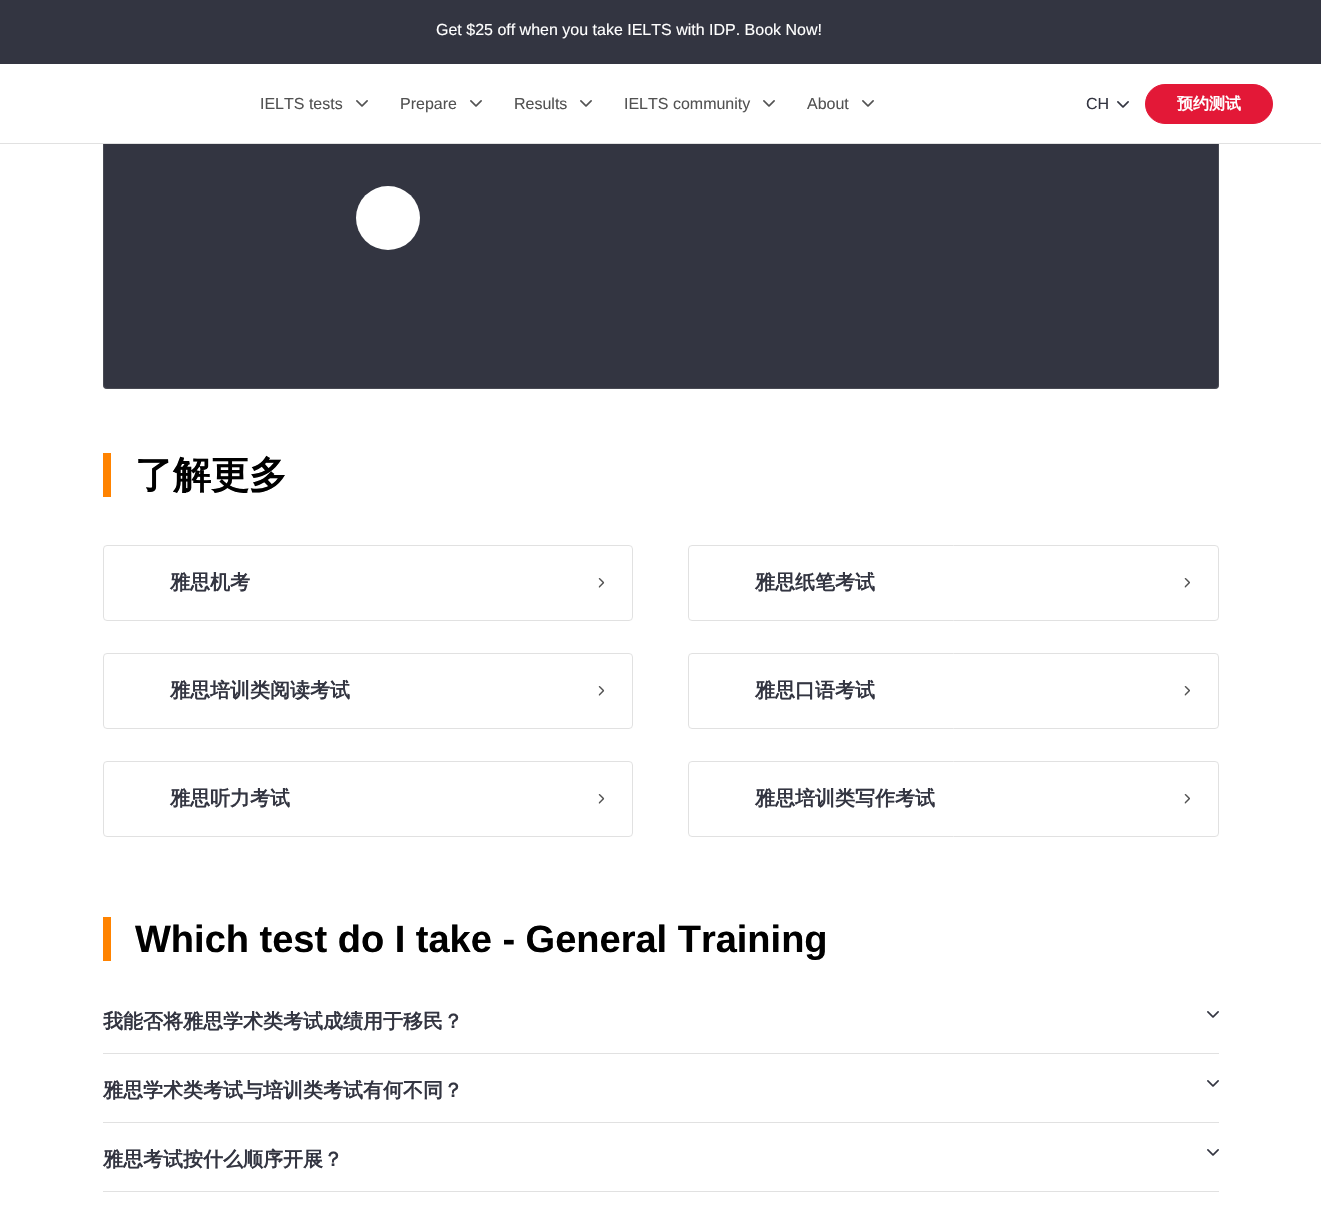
#include "include/core/SkBlurTypes.h"
#include "include/core/SkCanvas.h"
#include "include/core/SkData.h"
#include "include/core/SkFont.h"
#include "include/core/SkFontMgr.h"
#include "include/core/SkImage.h"
#include "include/core/SkMaskFilter.h"
#include "include/core/SkPaint.h"
#include "include/core/SkPathBuilder.h"
#include "include/core/SkTextBlob.h"
#include "include/effects/SkDashPathEffect.h"
#include "include/effects/SkGradientShader.h"
#include "include/utils/SkParsePath.h"

extern sk_sp<SkFontMgr> fontMgr;

void draw(SkCanvas* canvas) {
    SkPaint p;
    p.setAntiAlias(true);
    auto font = [&](const char* family, int weight, float size, bool italic = false) {
        SkFontStyle style(weight, SkFontStyle::kNormal_Width,
            italic ? SkFontStyle::kItalic_Slant : SkFontStyle::kUpright_Slant);
        SkFont result(fontMgr->matchFamilyStyle(family, style), size);
        result.setSubpixel(true);
        return result;
    };
    auto drawPhoto = [&](const char* path, float l, float t, float r, float b) {
        auto image = SkImages::DeferredFromEncodedData(SkData::MakeFromFileName(path));
        canvas->drawImageRect(image, SkRect::MakeLTRB(l, t, r, b), SkSamplingOptions());
    };
    canvas->clear(0xFFFFFFFF);
    p.setColor(0xFF333541);
    canvas->drawRoundRect(SkRect::MakeLTRB(103, 46, 1219, 389), 4, 4, p);
    p.setStyle(SkPaint::kStroke_Style);
    p.setStrokeWidth(1);
    p.setColor(0x40878787);
    canvas->drawRoundRect(SkRect::MakeLTRB(103.5f, 46.5f, 1218.5f, 388.5f), 3.5f, 3.5f, p);
    p.setStyle(SkPaint::kFill_Style);
    p.setColor(0xFF333541);
    canvas->drawRect(SkRect::MakeLTRB(0, 0, 1321, 64), p);
    auto font1 = font("Liberation Sans", 400, 16);
    p.setColor(0xFFFFFFFF);
    canvas->drawString("Get $25 off when you take IELTS with IDP. Book Now!", 436, 35, font1, p);
    canvas->drawRect(SkRect::MakeLTRB(103, 64, 1219, 143), p);
    p.setColor(0xFFE1E1E1);
    canvas->drawRect(SkRect::MakeLTRB(0, 143, 1321, 144), p);
    p.setColor(0xFF525252);
    canvas->drawString("IELTS tests", 260, 109, font1, p);
    drawPhoto("media/1.png", 356, 100, 368, 107);
    canvas->drawString("Prepare", 400, 109, font1, p);
    drawPhoto("media/1.png", 470, 100, 482, 107);
    canvas->drawString("Results", 514, 109, font1, p);
    drawPhoto("media/1.png", 580, 100, 592, 107);
    canvas->drawString("IELTS community", 624, 109, font1, p);
    drawPhoto("media/1.png", 763, 100, 775, 107);
    canvas->drawString("About", 807, 109, font1, p);
    drawPhoto("media/1.png", 862, 100, 874, 107);
    p.setColor(0xFF333541);
    canvas->drawString("CH", 1086, 109, font1, p);
    drawPhoto("media/2.png", 1117, 101, 1129, 108);
    p.setColor(0xFFE31837);
    canvas->drawRoundRect(SkRect::MakeLTRB(1145.5f, 84.5f, 1272.5f, 123.5f), 19.5f, 19.5f, p);
    p.setStyle(SkPaint::kStroke_Style);
    canvas->drawRoundRect(SkRect::MakeLTRB(1145.5f, 84.5f, 1272.5f, 123.5f), 19.5f, 19.5f, p);
    auto font2 = font("WenQuanYi Zen Hei", 700, 16);
    p.setStyle(SkPaint::kFill_Style);
    p.setColor(0xFFFFFFFF);
    canvas->drawString("预约测试", 1177, 109, font2, p);
    canvas->drawCircle(388, 218, 32, p);
    p.setColor(0xFFFF8300);
    canvas->drawRect(SkRect::MakeLTRB(103, 453, 111, 497), p);
    auto font3 = font("WenQuanYi Zen Hei", 700, 38);
    p.setColor(0xFF000000);
    canvas->drawString("了解更多", 135, 488, font3, p);
    p.setStyle(SkPaint::kStroke_Style);
    p.setColor(0xFFE1E1E1);
    canvas->drawRoundRect(SkRect::MakeLTRB(103.5f, 545.5f, 632.5f, 620.5f), 3.5f, 3.5f, p);
    auto font4 = font("WenQuanYi Zen Hei", 700, 20);
    p.setStyle(SkPaint::kFill_Style);
    p.setColor(0xFF333541);
    canvas->drawString("雅思机考", 170, 589, font4, p);
    drawPhoto("media/3.png", 598, 578, 605, 588);
    p.setStyle(SkPaint::kStroke_Style);
    p.setColor(0xFFE1E1E1);
    canvas->drawRoundRect(SkRect::MakeLTRB(688.5f, 545.5f, 1218.5f, 620.5f), 3.5f, 3.5f, p);
    p.setStyle(SkPaint::kFill_Style);
    p.setColor(0xFF333541);
    canvas->drawString("雅思纸笔考试", 755, 589, font4, p);
    drawPhoto("media/4.png", 1184, 578, 1190, 588);
    p.setStyle(SkPaint::kStroke_Style);
    p.setColor(0xFFE1E1E1);
    canvas->drawRoundRect(SkRect::MakeLTRB(103.5f, 653.5f, 632.5f, 728.5f), 3.5f, 3.5f, p);
    p.setStyle(SkPaint::kFill_Style);
    p.setColor(0xFF333541);
    canvas->drawString("雅思培训类阅读考试", 170, 697, font4, p);
    drawPhoto("media/3.png", 598, 686, 605, 696);
    p.setStyle(SkPaint::kStroke_Style);
    p.setColor(0xFFE1E1E1);
    canvas->drawRoundRect(SkRect::MakeLTRB(688.5f, 653.5f, 1218.5f, 728.5f), 3.5f, 3.5f, p);
    p.setStyle(SkPaint::kFill_Style);
    p.setColor(0xFF333541);
    canvas->drawString("雅思口语考试", 755, 697, font4, p);
    drawPhoto("media/4.png", 1184, 686, 1190, 696);
    p.setStyle(SkPaint::kStroke_Style);
    p.setColor(0xFFE1E1E1);
    canvas->drawRoundRect(SkRect::MakeLTRB(103.5f, 761.5f, 632.5f, 836.5f), 3.5f, 3.5f, p);
    p.setStyle(SkPaint::kFill_Style);
    p.setColor(0xFF333541);
    canvas->drawString("雅思听力考试", 170, 805, font4, p);
    drawPhoto("media/3.png", 598, 794, 605, 804);
    p.setStyle(SkPaint::kStroke_Style);
    p.setColor(0xFFE1E1E1);
    canvas->drawRoundRect(SkRect::MakeLTRB(688.5f, 761.5f, 1218.5f, 836.5f), 3.5f, 3.5f, p);
    p.setStyle(SkPaint::kFill_Style);
    p.setColor(0xFF333541);
    canvas->drawString("雅思培训类写作考试", 755, 805, font4, p);
    drawPhoto("media/4.png", 1184, 794, 1190, 804);
    p.setColor(0xFFFF8300);
    canvas->drawRect(SkRect::MakeLTRB(103, 917, 111, 961), p);
    auto font5 = font("Liberation Sans", 700, 38);
    p.setColor(0xFF000000);
    canvas->drawString("Which test do I take - General Training", 135, 952, font5, p);
    p.setColor(0xFFE1E1E1);
    canvas->drawRect(SkRect::MakeLTRB(103, 1053, 1219, 1054), p);
    p.setColor(0xFF333541);
    canvas->drawString("我能否将雅思学术类考试成绩用于移民？", 103, 1028, font4, p);
    drawPhoto("media/2.png", 1207, 1011, 1219, 1018);
    p.setColor(0xFFE1E1E1);
    canvas->drawRect(SkRect::MakeLTRB(103, 1122, 1219, 1123), p);
    p.setColor(0xFF333541);
    canvas->drawString("雅思学术类考试与培训类考试有何不同？", 103, 1097, font4, p);
    drawPhoto("media/2.png", 1207, 1080, 1219, 1087);
    p.setColor(0xFFE1E1E1);
    canvas->drawRect(SkRect::MakeLTRB(103, 1191, 1219, 1192), p);
    p.setColor(0xFF333541);
    canvas->drawString("雅思考试按什么顺序开展？", 103, 1166, font4, p);
    drawPhoto("media/2.png", 1207, 1149, 1219, 1156);
}
